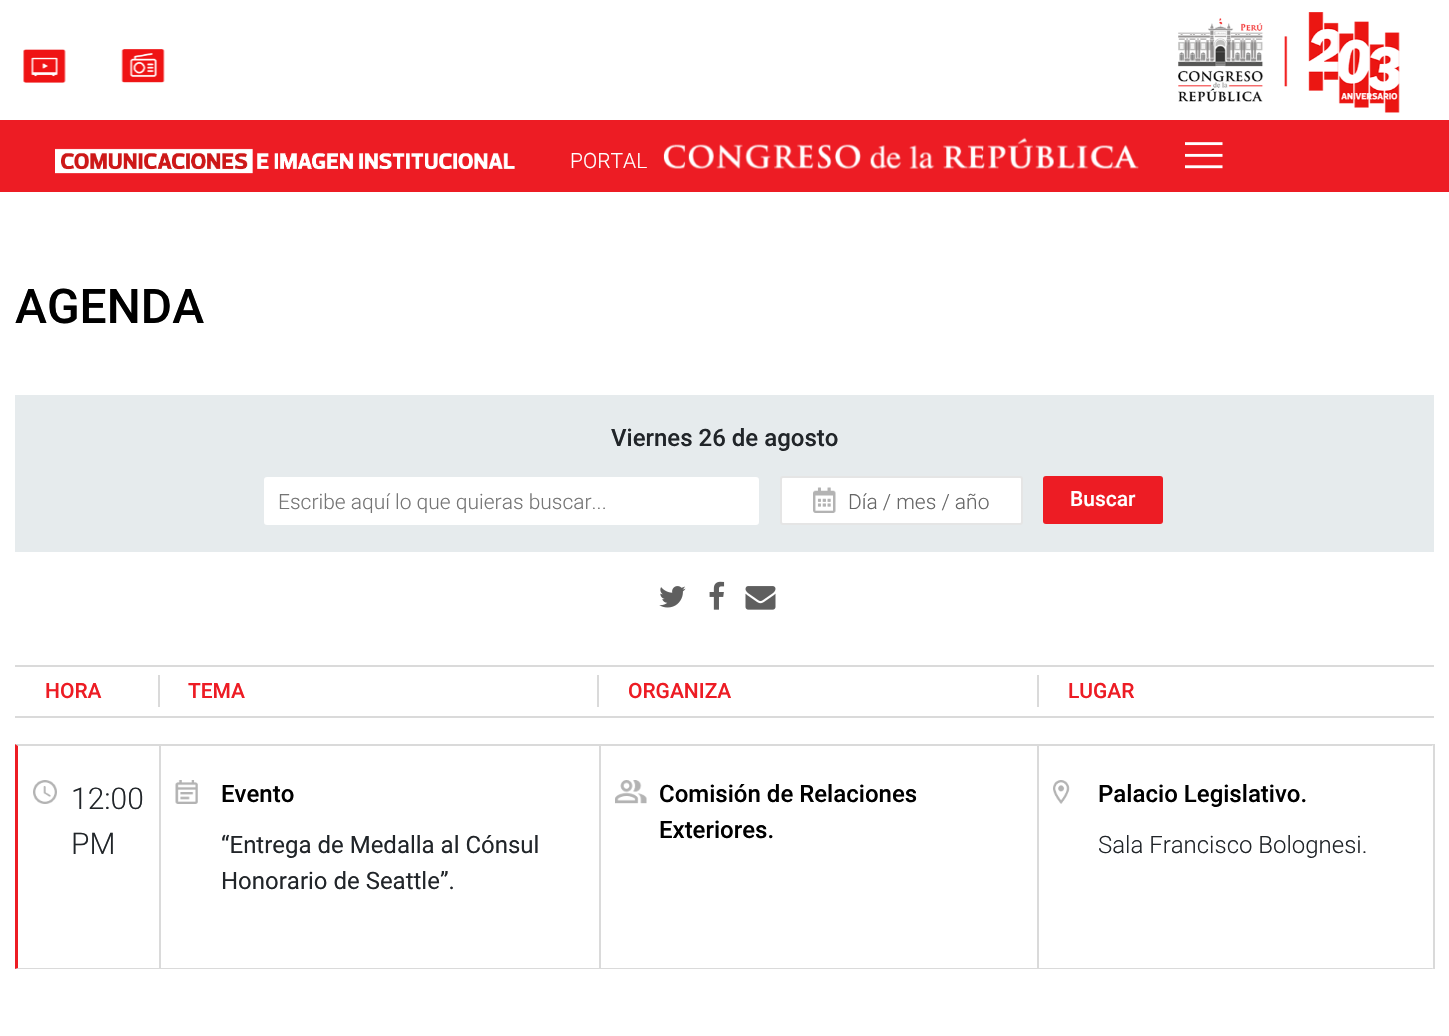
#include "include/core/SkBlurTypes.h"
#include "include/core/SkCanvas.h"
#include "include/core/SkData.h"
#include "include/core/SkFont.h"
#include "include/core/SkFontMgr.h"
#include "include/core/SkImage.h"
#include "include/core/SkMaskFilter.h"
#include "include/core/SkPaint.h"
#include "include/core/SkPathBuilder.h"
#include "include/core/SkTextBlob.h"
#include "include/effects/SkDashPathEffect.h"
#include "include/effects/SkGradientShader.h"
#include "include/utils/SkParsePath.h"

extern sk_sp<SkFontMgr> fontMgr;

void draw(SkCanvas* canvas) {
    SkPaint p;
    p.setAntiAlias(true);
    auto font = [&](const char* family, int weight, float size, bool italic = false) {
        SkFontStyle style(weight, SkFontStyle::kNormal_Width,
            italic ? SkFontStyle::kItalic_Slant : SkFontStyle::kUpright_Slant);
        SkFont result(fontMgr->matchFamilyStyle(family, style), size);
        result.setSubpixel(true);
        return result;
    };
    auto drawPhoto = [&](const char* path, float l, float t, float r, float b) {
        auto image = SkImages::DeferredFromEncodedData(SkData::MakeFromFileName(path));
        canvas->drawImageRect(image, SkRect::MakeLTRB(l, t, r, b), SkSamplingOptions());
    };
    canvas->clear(0xFFFFFFFF);
    drawPhoto("media/1.png", 23, 49, 66, 83);
    drawPhoto("media/2.png", 121, 49, 165, 83);
    drawPhoto("media/3.png", 1178, 12, 1400, 113);
    p.setColor(0xFFED1C24);
    canvas->drawRect(SkRect::MakeLTRB(0, 120, 1449, 192), p);
    drawPhoto("media/4.png", 55, 148, 515, 174);
    auto font1 = font("Roboto", 300, 21);
    p.setColor(0xFFFFFFFF);
    canvas->drawString("PORTAL", 570, 168, font1, p);
    drawPhoto("media/5.png", 663, 137, 1139, 169);
    drawPhoto("media/6.png", 1185, 142, 1223, 169);
    auto font2 = font("Roboto", 500, 48);
    p.setColor(0xFF000000);
    canvas->drawString("AGENDA", 15, 323, font2, p);
    p.setColor(0xFFE6EBED);
    canvas->drawRect(SkRect::MakeLTRB(15, 395, 1434, 552), p);
    auto font3 = font("Roboto", 500, 24);
    p.setColor(0xFF212529);
    canvas->drawString("Viernes 26 de agosto", 611, 446, font3, p);
    p.setColor(0xFFFFFFFF);
    canvas->drawRoundRect(SkRect::MakeLTRB(264, 477, 759, 525), 3, 3, p);
    canvas->save();
    canvas->clipRect(SkRect::MakeLTRB(279, 489, 744, 513));
    p.setColor(0xFF757575);
    canvas->drawString("Escribe aquí lo que quieras buscar...", 278, 509, font1, p);
    canvas->restore();
    p.setColor(0xFFFFFFFF);
    canvas->drawRoundRect(SkRect::MakeLTRB(781, 477, 1022, 524), 2, 2, p);
    p.setStyle(SkPaint::kStroke_Style);
    p.setStrokeWidth(2);
    p.setColor(0xFFE5E5E5);
    canvas->drawRoundRect(SkRect::MakeLTRB(781, 477, 1022, 524), 2, 2, p);
    drawPhoto("media/7.png", 813, 487, 836, 513);
    p.setStyle(SkPaint::kFill_Style);
    p.setColor(0xFF666666);
    canvas->drawString("Día / mes / año", 848, 509, font1, p);
    p.setColor(0xFFED1C24);
    canvas->drawRoundRect(SkRect::MakeLTRB(1043, 476, 1163, 524), 3, 3, p);
    auto font4 = font("Roboto", 500, 21);
    p.setColor(0xFFFFFFFF);
    canvas->drawString("Buscar", 1070, 506, font4, p);
    drawPhoto("media/8.png", 659, 586, 686, 608);
    drawPhoto("media/9.png", 709, 581, 725, 610);
    drawPhoto("media/10.png", 745, 586, 776, 610);
    p.setColor(0xFFDADADA);
    canvas->drawRect(SkRect::MakeLTRB(15, 665, 1434, 667), p);
    canvas->drawRect(SkRect::MakeLTRB(15, 716, 1434, 718), p);
    p.setColor(0xFFED1C24);
    canvas->drawString("HORA", 45, 698, font4, p);
    p.setColor(0xFFDADADA);
    canvas->drawRect(SkRect::MakeLTRB(158, 675, 160, 707), p);
    p.setColor(0xFFED1C24);
    canvas->drawString("TEMA", 188, 698, font4, p);
    p.setColor(0xFFDADADA);
    canvas->drawRect(SkRect::MakeLTRB(597, 675, 599, 707), p);
    p.setColor(0xFFED1C24);
    canvas->drawString("ORGANIZA", 628, 698, font4, p);
    p.setColor(0xFFDADADA);
    canvas->drawRect(SkRect::MakeLTRB(1037, 675, 1039, 707), p);
    p.setColor(0xFFED1C24);
    canvas->drawString("LUGAR", 1068, 698, font4, p);
    p.setColor(0xFFDADADA);
    canvas->drawPath(SkPathBuilder().moveTo(15, 744).lineTo(1434, 744).lineTo(1432, 746).lineTo(18, 746).close().detach(), p);
    canvas->drawRect(SkRect::MakeLTRB(1433, 744, 1435, 969), p);
    canvas->drawPath(SkPathBuilder().moveTo(1434, 969).lineTo(15, 969).lineTo(18, 968).lineTo(1432, 968).close().detach(), p);
    p.setColor(0xFFED1C24);
    canvas->drawPath(SkPathBuilder().moveTo(15, 969).lineTo(15, 744).lineTo(18, 746).lineTo(18, 968).close().detach(), p);
    drawPhoto("media/11.png", 33, 780, 57, 804);
    auto font5 = font("Roboto", 300, 30);
    p.setColor(0xFF212529);
    canvas->drawString("12:00", 71, 809, font5, p);
    canvas->drawString("PM", 71, 854, font5, p);
    p.setColor(0xFFDADADA);
    canvas->drawRect(SkRect::MakeLTRB(159, 746, 161, 968), p);
    drawPhoto("media/12.png", 175, 780, 198, 804);
    p.setColor(0xFF000000);
    canvas->drawString("Evento", 221, 802, font3, p);
    auto font6 = font("Roboto", 400, 24);
    p.setColor(0xFF212529);
    canvas->drawString("“Entrega de Medalla al Cónsul", 221, 853, font6, p);
    canvas->drawString("Honorario de Seattle”.", 221, 889, font6, p);
    p.setColor(0xFFDADADA);
    canvas->drawRect(SkRect::MakeLTRB(599, 746, 601, 968), p);
    drawPhoto("media/13.png", 615, 780, 647, 804);
    p.setColor(0xFF000000);
    canvas->drawString("Comisión de Relaciones", 659, 802, font3, p);
    canvas->drawString("Exteriores.", 659, 838, font3, p);
    p.setColor(0xFFDADADA);
    canvas->drawRect(SkRect::MakeLTRB(1037, 746, 1039, 968), p);
    drawPhoto("media/14.png", 1053, 780, 1070, 804);
    p.setColor(0xFF000000);
    canvas->drawString("Palacio Legislativo.", 1098, 802, font3, p);
    auto font7 = font("Roboto", 300, 24);
    p.setColor(0xFF212529);
    canvas->drawString("Sala Francisco Bolognesi.", 1098, 853, font7, p);
}
